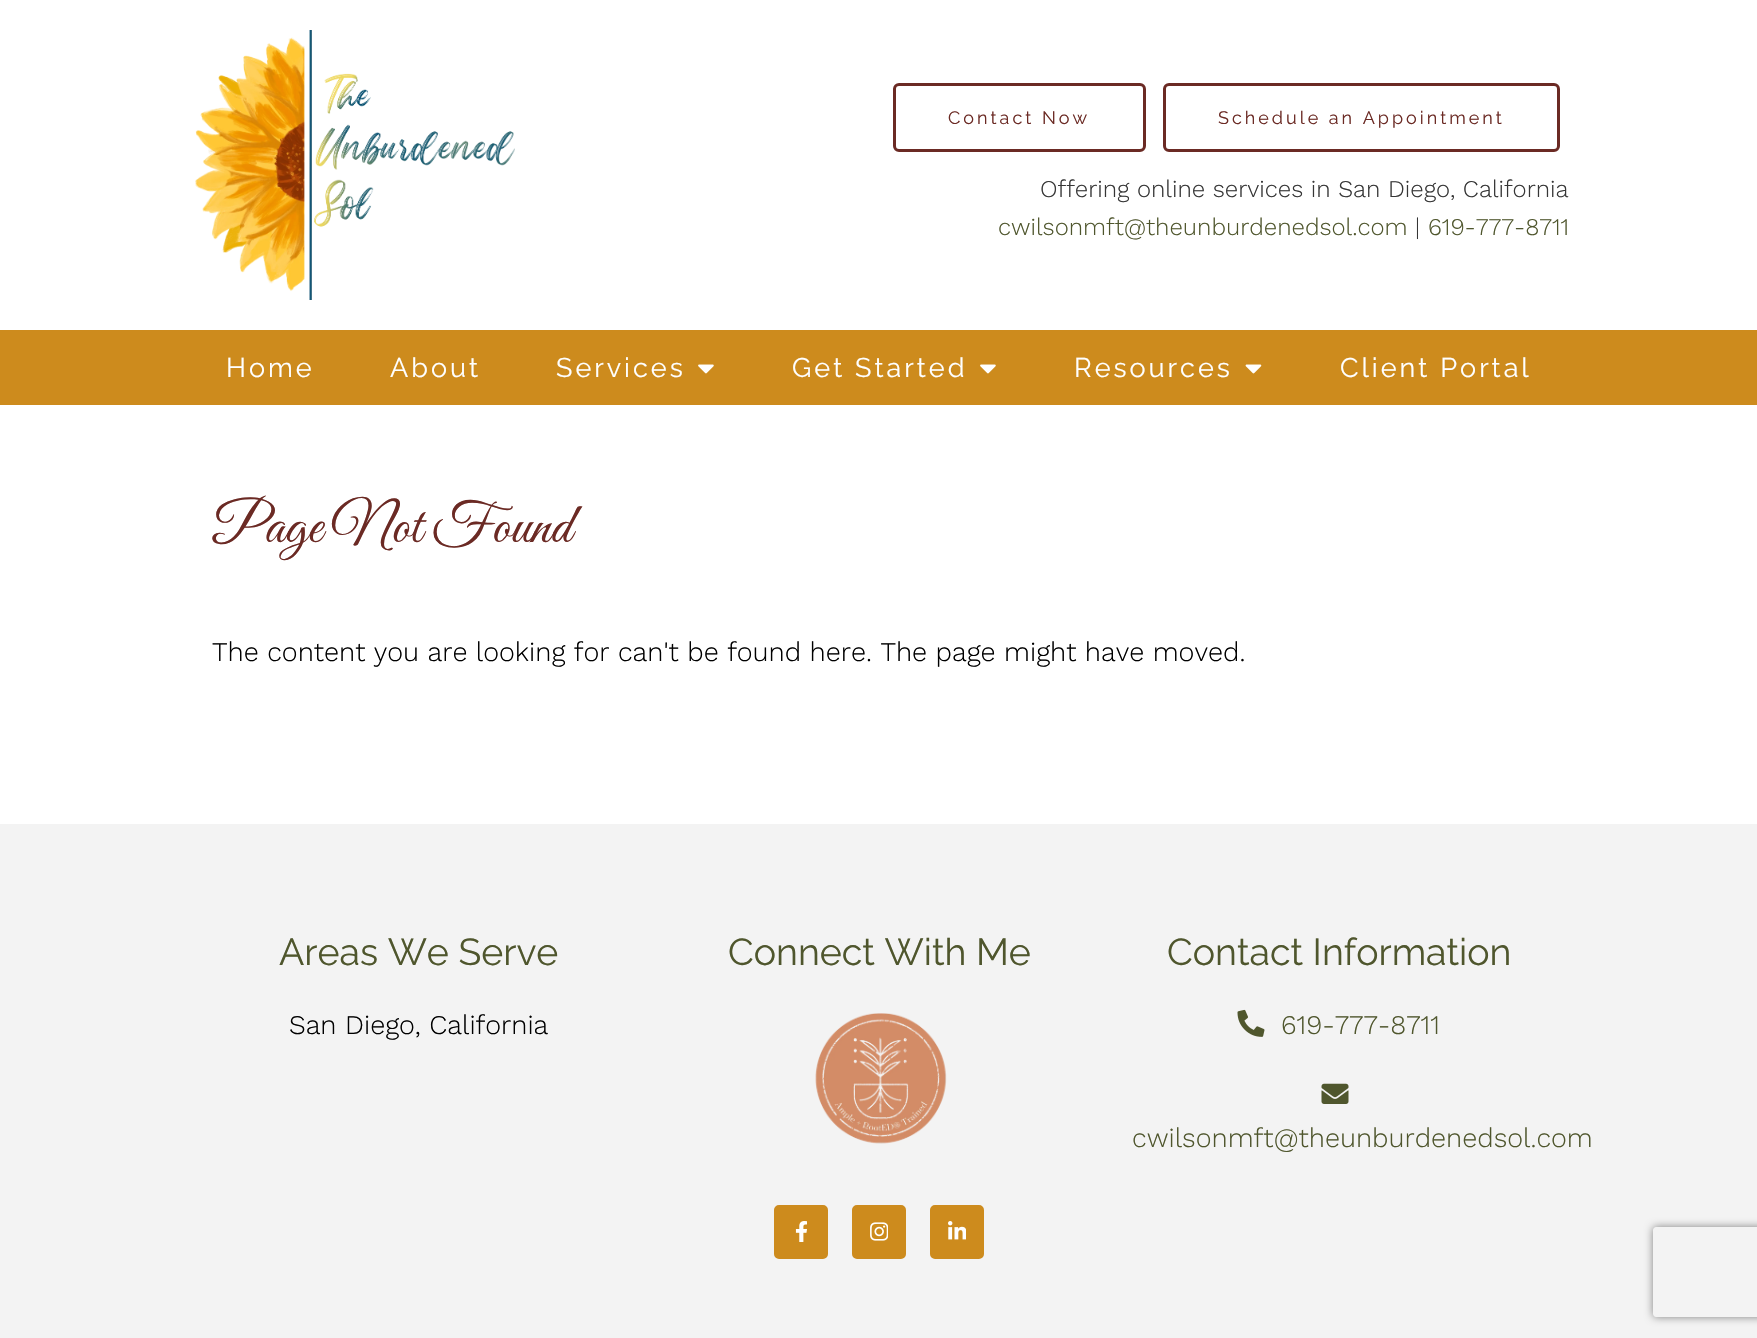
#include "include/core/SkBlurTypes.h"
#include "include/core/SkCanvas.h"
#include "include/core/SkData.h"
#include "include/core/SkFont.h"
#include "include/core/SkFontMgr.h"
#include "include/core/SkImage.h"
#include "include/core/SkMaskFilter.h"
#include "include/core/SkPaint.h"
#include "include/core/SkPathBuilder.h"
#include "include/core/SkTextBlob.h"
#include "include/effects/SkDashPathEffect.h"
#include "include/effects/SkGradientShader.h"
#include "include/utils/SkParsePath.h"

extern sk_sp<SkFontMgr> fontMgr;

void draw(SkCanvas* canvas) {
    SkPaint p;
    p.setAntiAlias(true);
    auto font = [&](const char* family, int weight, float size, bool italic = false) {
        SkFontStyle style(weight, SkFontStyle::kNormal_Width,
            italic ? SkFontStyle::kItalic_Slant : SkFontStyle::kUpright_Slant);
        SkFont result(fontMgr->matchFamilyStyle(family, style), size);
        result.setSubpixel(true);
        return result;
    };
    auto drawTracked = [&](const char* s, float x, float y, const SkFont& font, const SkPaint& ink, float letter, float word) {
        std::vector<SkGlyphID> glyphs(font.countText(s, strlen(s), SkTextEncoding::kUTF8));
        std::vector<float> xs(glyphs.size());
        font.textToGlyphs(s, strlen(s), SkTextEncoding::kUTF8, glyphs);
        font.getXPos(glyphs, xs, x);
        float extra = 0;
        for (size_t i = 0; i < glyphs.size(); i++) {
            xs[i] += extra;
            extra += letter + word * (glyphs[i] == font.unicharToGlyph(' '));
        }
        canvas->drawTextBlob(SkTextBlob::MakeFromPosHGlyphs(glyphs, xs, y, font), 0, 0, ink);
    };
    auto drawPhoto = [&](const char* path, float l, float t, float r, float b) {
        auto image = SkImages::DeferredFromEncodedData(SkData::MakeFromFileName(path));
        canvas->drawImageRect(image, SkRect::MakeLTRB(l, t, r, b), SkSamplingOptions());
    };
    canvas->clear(0xFFFFFFFF);
    drawPhoto("media/1.png", 195, 30, 515, 300);
    p.setStyle(SkPaint::kStroke_Style);
    p.setStrokeWidth(3);
    p.setColor(0xFF6B2A24);
    canvas->drawRoundRect(SkRect::MakeLTRB(894.5f, 84.5f, 1144.5f, 150.5f), 4.5f, 4.5f, p);
    auto font1 = font("Raleway", 400, 18);
    p.setStyle(SkPaint::kFill_Style);
    drawTracked("Contact Now", 948, 124, font1, p, 3, 0);
    p.setStyle(SkPaint::kStroke_Style);
    canvas->drawRoundRect(SkRect::MakeLTRB(1164.5f, 84.5f, 1558.5f, 150.5f), 4.5f, 4.5f, p);
    p.setStyle(SkPaint::kFill_Style);
    drawTracked("Schedule an Appointment", 1218, 124, font1, p, 3, 0);
    auto font2 = font("Work Sans", 300, 24);
    p.setColor(0xFF363636);
    canvas->drawString("Offering online services in San Diego, California", 1040, 197, font2, p);
    p.setColor(0xFF4F562D);
    canvas->drawString("cwilsonmft@theunburdenedsol.com", 998, 235, font2, p);
    p.setColor(0xFF363636);
    canvas->drawString("|", 1415, 235, font2, p);
    p.setColor(0xFF4F562D);
    canvas->drawString("619-777-8711", 1428, 235, font2, p);
    p.setColor(0xFFCD8B1D);
    canvas->drawRect(SkRect::MakeLTRB(0, 330, 1757, 405), p);
    auto font3 = font("Raleway", 400, 27);
    p.setColor(0xFFFFFFFF);
    {
        const struct { const char* s; float x, y; } items[] = {
            {"Home", 226, 377},
            {"About", 390, 377},
            {"Services", 556, 377},
        };
        for (auto [s, x, y] : items) {
            drawTracked(s, x, y, font3, p, 3, 0);
        }
    }
    drawPhoto("media/2.png", 698, 364, 714, 374);
    drawTracked("Get Started", 792, 377, font3, p, 3, 0);
    drawPhoto("media/2.png", 980, 364, 996, 374);
    drawTracked("Resources", 1074, 377, font3, p, 3, 0);
    drawPhoto("media/3.png", 1245, 364, 1262, 374);
    drawTracked("Client Portal", 1340, 377, font3, p, 3, 0);
    auto font4 = font("Great Vibes", 400, 57);
    p.setColor(0xFF6B2A24);
    canvas->drawString("Page Not Found", 212, 542, font4, p);
    auto font5 = font("Work Sans", 300, 27);
    p.setColor(0xFF000000);
    canvas->drawString("The content you are looking for can't be found here. The page might have moved.", 212, 661, font5, p);
    p.setColor(0xFFF3F3F3);
    canvas->drawRect(SkRect::MakeLTRB(0, 824, 1757, 1338), p);
    auto font6 = font("Raleway", 400, 37.5f);
    p.setColor(0xFF4F562D);
    canvas->drawString("Areas We Serve", 279, 965, font6, p);
    p.setColor(0xFF000000);
    canvas->drawString("San Diego, California", 289, 1034, font5, p);
    p.setColor(0xFF4F562D);
    canvas->drawString("Connect With Me", 728, 965, font6, p);
    drawPhoto("media/4.png", 815, 1013, 947, 1144);
    p.setColor(0xFFCD8B1D);
    canvas->drawRoundRect(SkRect::MakeLTRB(776.5f, 1207.5f, 825.5f, 1256.5f), 2.5f, 2.5f, p);
    p.setStyle(SkPaint::kStroke_Style);
    p.setStrokeWidth(5);
    canvas->drawRoundRect(SkRect::MakeLTRB(776.5f, 1207.5f, 825.5f, 1256.5f), 2.5f, 2.5f, p);
    drawPhoto("media/5.png", 795, 1221, 807, 1242);
    p.setStyle(SkPaint::kFill_Style);
    canvas->drawRoundRect(SkRect::MakeLTRB(854.5f, 1207.5f, 903.5f, 1256.5f), 2.5f, 2.5f, p);
    p.setStyle(SkPaint::kStroke_Style);
    canvas->drawRoundRect(SkRect::MakeLTRB(854.5f, 1207.5f, 903.5f, 1256.5f), 2.5f, 2.5f, p);
    drawPhoto("media/6.png", 870, 1222, 888, 1241);
    p.setStyle(SkPaint::kFill_Style);
    canvas->drawRoundRect(SkRect::MakeLTRB(932.5f, 1207.5f, 981.5f, 1256.5f), 2.5f, 2.5f, p);
    p.setStyle(SkPaint::kStroke_Style);
    canvas->drawRoundRect(SkRect::MakeLTRB(932.5f, 1207.5f, 981.5f, 1256.5f), 2.5f, 2.5f, p);
    drawPhoto("media/7.png", 948, 1221, 966, 1240);
    p.setStyle(SkPaint::kFill_Style);
    p.setColor(0xFF4F562D);
    canvas->drawString("Contact Information", 1167, 965, font6, p);
    drawPhoto("media/8.png", 1237, 1009, 1265, 1037);
    canvas->drawString("619-777-8711", 1281, 1034, font5, p);
    drawPhoto("media/9.png", 1321, 1083, 1349, 1104);
    canvas->drawString("cwilsonmft@theunburdenedsol.com", 1132, 1147, font5, p);
    canvas->save();
    canvas->clipPath(SkPathBuilder(SkPathFillType::kEvenOdd).moveTo(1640, 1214).lineTo(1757, 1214).lineTo(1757, 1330).lineTo(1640, 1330).close().moveTo(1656, 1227).lineTo(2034, 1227).cubicTo(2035.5f, 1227, 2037, 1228.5f, 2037, 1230).lineTo(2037, 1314).cubicTo(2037, 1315.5f, 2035.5f, 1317, 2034, 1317).lineTo(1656, 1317).cubicTo(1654.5f, 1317, 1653, 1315.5f, 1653, 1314).lineTo(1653, 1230).cubicTo(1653, 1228.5f, 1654.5f, 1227, 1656, 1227).close().detach(), true);
    p.setColor(0xFF808080);
    p.setMaskFilter(SkMaskFilter::MakeBlur(kNormal_SkBlurStyle, 4));
    canvas->drawRoundRect(SkRect::MakeLTRB(1653, 1227, 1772, 1317), 3, 3, p);
    p.setMaskFilter(nullptr);
    canvas->restore();
}
